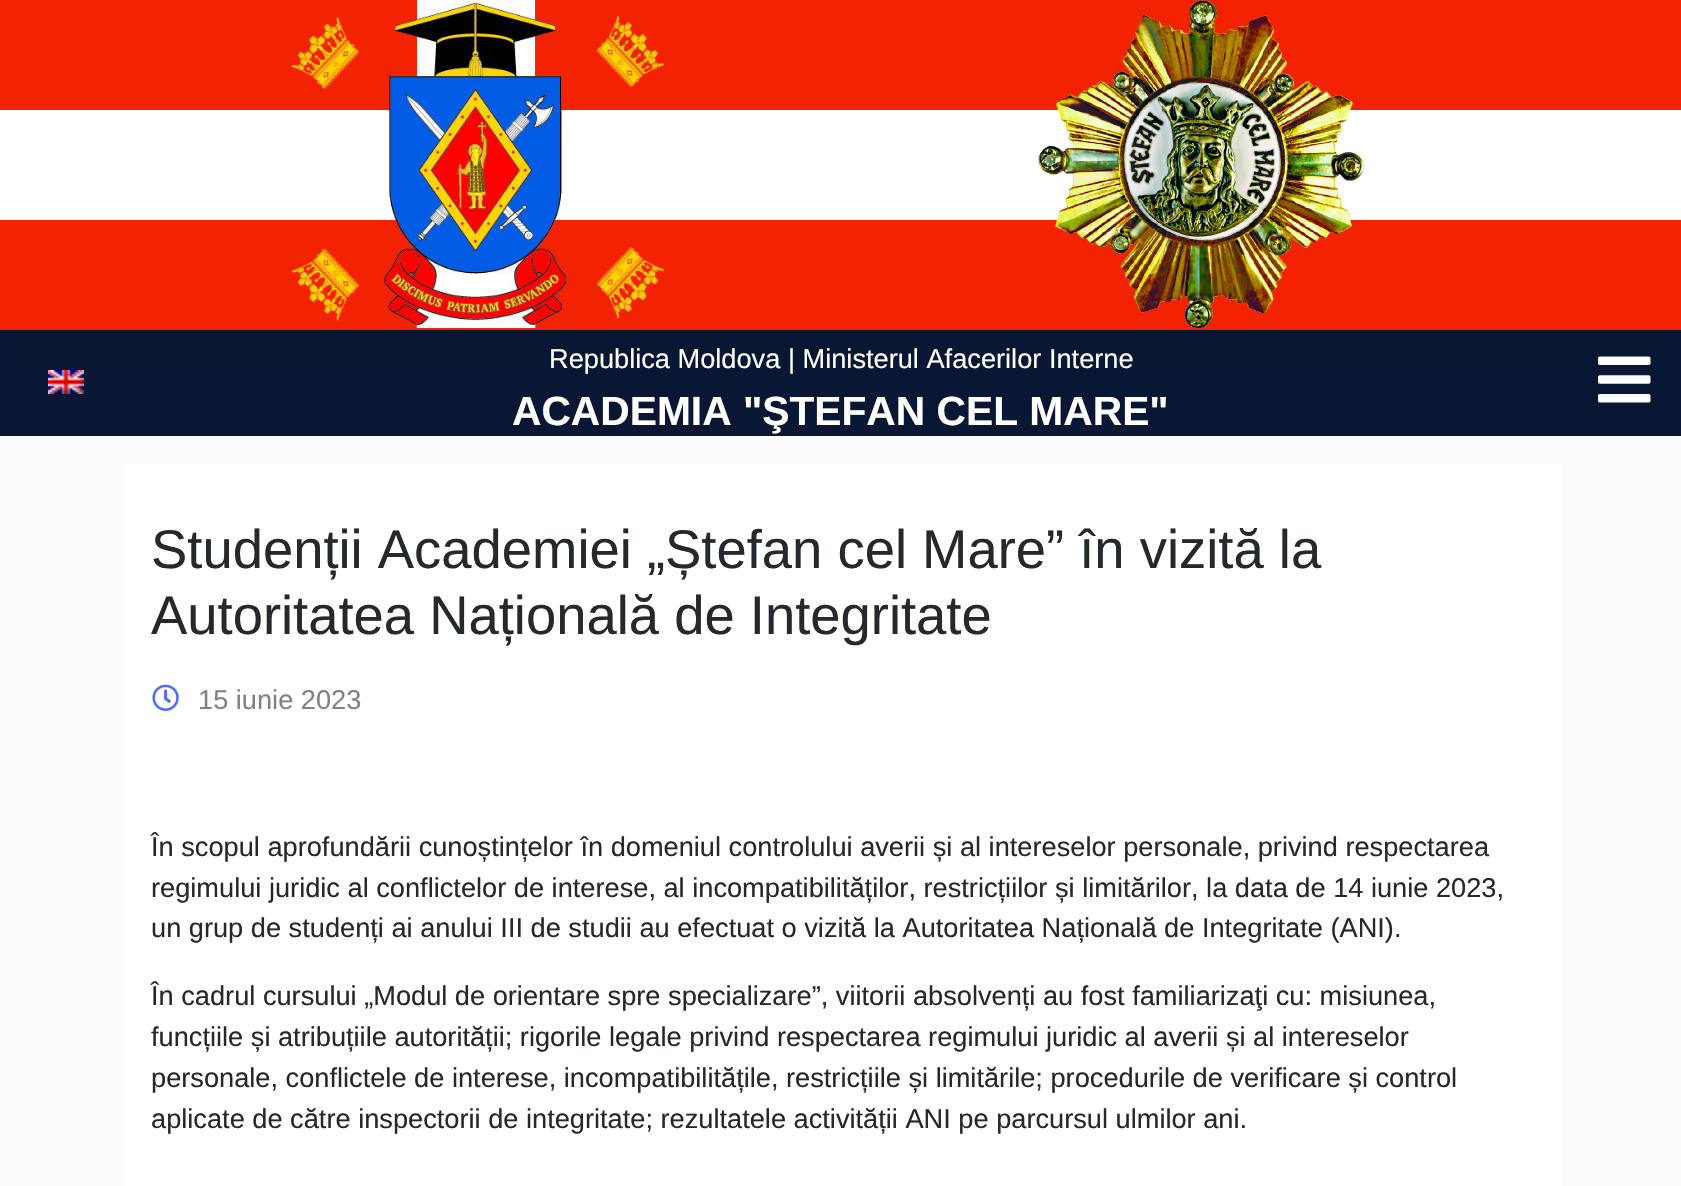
#include "include/core/SkBlurTypes.h"
#include "include/core/SkCanvas.h"
#include "include/core/SkData.h"
#include "include/core/SkFont.h"
#include "include/core/SkFontMgr.h"
#include "include/core/SkImage.h"
#include "include/core/SkMaskFilter.h"
#include "include/core/SkPaint.h"
#include "include/core/SkPathBuilder.h"
#include "include/core/SkTextBlob.h"
#include "include/effects/SkDashPathEffect.h"
#include "include/effects/SkGradientShader.h"
#include "include/utils/SkParsePath.h"

extern sk_sp<SkFontMgr> fontMgr;

void draw(SkCanvas* canvas) {
    SkPaint p;
    p.setAntiAlias(true);
    auto font = [&](const char* family, int weight, float size, bool italic = false) {
        SkFontStyle style(weight, SkFontStyle::kNormal_Width,
            italic ? SkFontStyle::kItalic_Slant : SkFontStyle::kUpright_Slant);
        SkFont result(fontMgr->matchFamilyStyle(family, style), size);
        result.setSubpixel(true);
        return result;
    };
    auto drawPhoto = [&](const char* path, float l, float t, float r, float b) {
        auto image = SkImages::DeferredFromEncodedData(SkData::MakeFromFileName(path));
        canvas->drawImageRect(image, SkRect::MakeLTRB(l, t, r, b), SkSamplingOptions());
    };
    canvas->clear(0xFFFBFBFB);
    p.setColor(0xFF091734);
    canvas->drawRect(SkRect::MakeLTRB(0, 330, 1681, 436), p);
    p.setColor(0x0D000000);
    p.setMaskFilter(SkMaskFilter::MakeBlur(kNormal_SkBlurStyle, 13.5f));
    canvas->drawRect(SkRect::MakeLTRB(0, 14, 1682, 342), p);
    p.setMaskFilter(nullptr);
    drawPhoto("media/1.png", 48, 370, 84, 394);
    drawPhoto("media/2.png", 1598, 356, 1651, 403);
    {
        const struct { float l, t, r, b; SkColor color; } items[] = {
            {0, 110, 1681, 220, 0xFFFFFFFF},
            {0, 0, 1681, 110, 0xFFF22202},
            {0, 220, 1681, 330, 0xFFF22202},
        };
        for (auto [l, t, r, b, color] : items) {
            p.setColor(color);
            canvas->drawRect(SkRect::MakeLTRB(l, t, r, b), p);
        }
    }
    drawPhoto("media/3.png", 290, 0, 665, 328);
    drawPhoto("media/4.png", 1038, 0, 1364, 328);
    auto font1 = font("Liberation Sans", 400, 27.2f);
    p.setColor(0xFFFFFFFF);
    canvas->drawString("Republica Moldova | Ministerul Afacerilor Interne", 549, 368, font1, p);
    auto font2 = font("Liberation Sans", 700, 40.75f);
    canvas->drawString("ACADEMIA \"ŞTEFAN CEL MARE\"", 512, 425, font2, p);
    canvas->drawRect(SkRect::MakeLTRB(122, 464, 1562, 1186), p);
    auto font3 = font("Liberation Sans", 400, 54.4f);
    p.setColor(0xFF24292E);
    canvas->drawString("Studenții Academiei „Ștefan cel Mare” în vizită la", 151, 568, font3, p);
    canvas->drawString("Autoritatea Națională de Integritate", 151, 634, font3, p);
    drawPhoto("media/5.png", 152, 684, 179, 711);
    p.setColor(0xFF828282);
    canvas->drawString("15 iunie 2023", 198, 709, font1, p);
    p.setColor(0xFF24292E);
    {
        const struct { const char* s; float x, y; } items[] = {
            {"În scopul aprofundării cunoștințelor în domeniul controlului averii și al intereselor personale, privind respectarea", 151, 856},
            {"regimului juridic al conflictelor de interese, al incompatibilităților, restricțiilor și limitărilor, la data de 14 iunie 2023,", 151, 897},
            {"un grup de studenți ai anului III de studii au efectuat o vizită la Autoritatea Națională de Integritate (ANI).", 151, 937},
            {"În cadrul cursului „Modul de orientare spre specializare”, viitorii absolvenți au fost familiarizaţi cu: misiunea,", 151, 1005},
            {"funcțiile și atribuțiile autorității; rigorile legale privind respectarea regimului juridic al averii și al intereselor", 151, 1046},
            {"personale, conflictele de interese, incompatibilitățile, restricțiile și limitările; procedurile de verificare și control", 151, 1087},
            {"aplicate de către inspectorii de integritate; rezultatele activității ANI pe parcursul ulmilor ani.", 151, 1128},
        };
        for (auto [s, x, y] : items) {
            canvas->drawString(s, x, y, font1, p);
        }
    }
}
